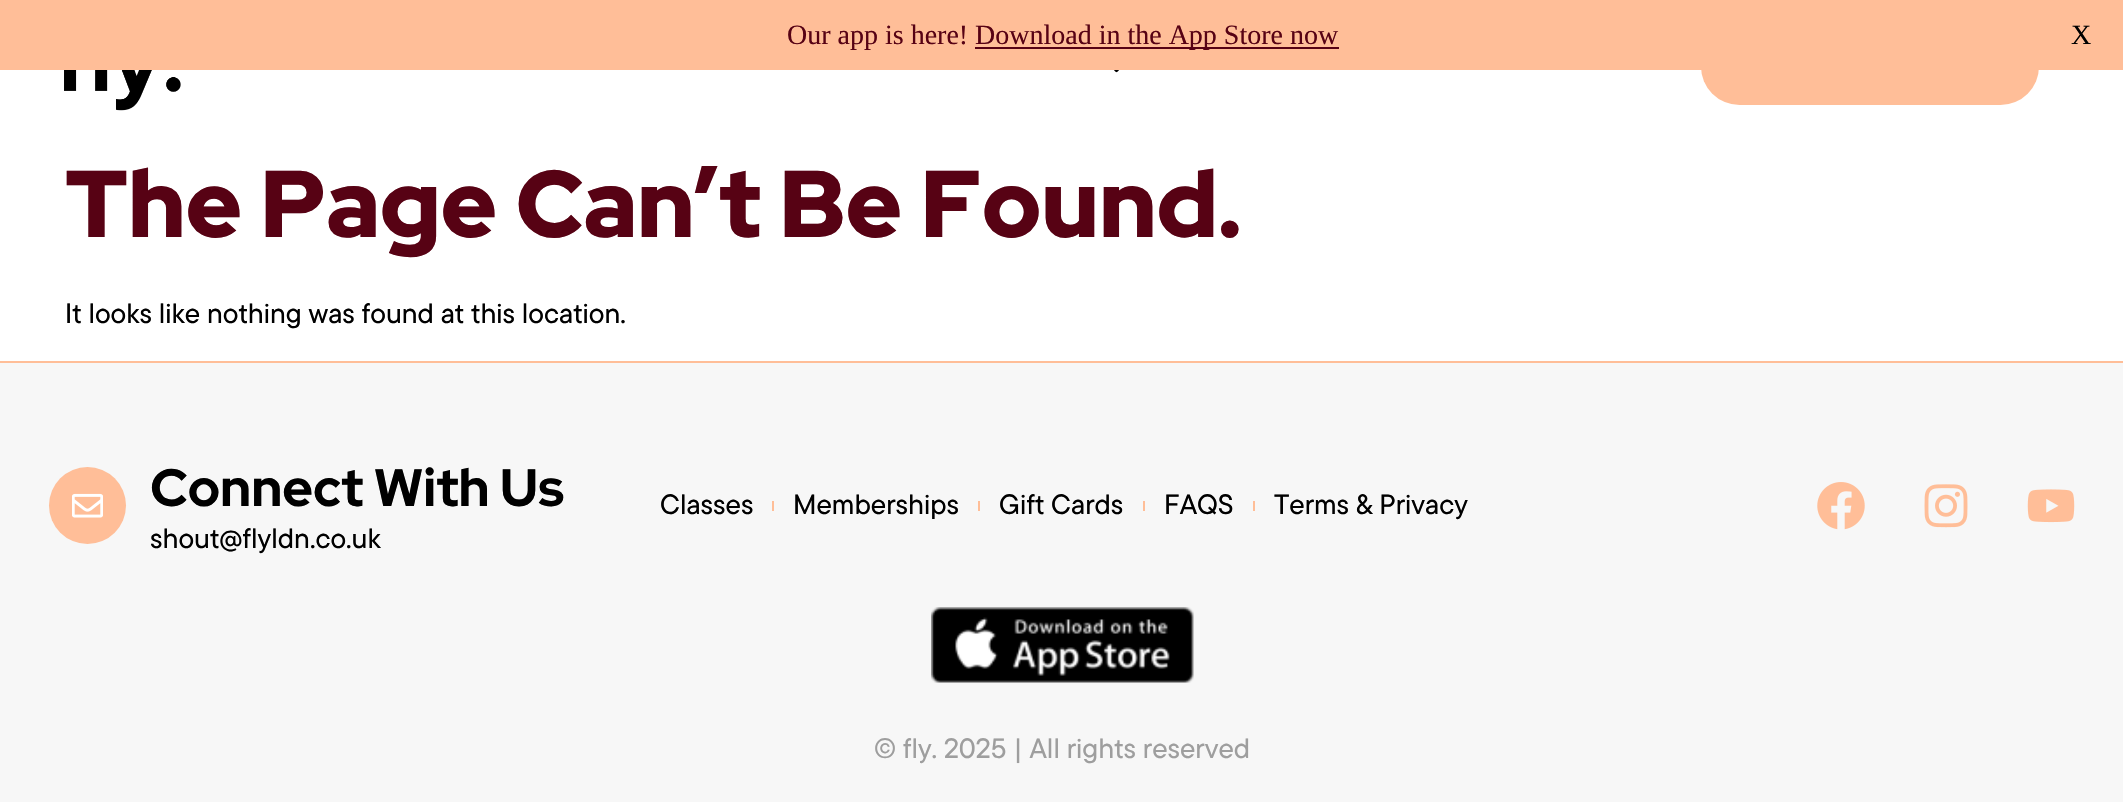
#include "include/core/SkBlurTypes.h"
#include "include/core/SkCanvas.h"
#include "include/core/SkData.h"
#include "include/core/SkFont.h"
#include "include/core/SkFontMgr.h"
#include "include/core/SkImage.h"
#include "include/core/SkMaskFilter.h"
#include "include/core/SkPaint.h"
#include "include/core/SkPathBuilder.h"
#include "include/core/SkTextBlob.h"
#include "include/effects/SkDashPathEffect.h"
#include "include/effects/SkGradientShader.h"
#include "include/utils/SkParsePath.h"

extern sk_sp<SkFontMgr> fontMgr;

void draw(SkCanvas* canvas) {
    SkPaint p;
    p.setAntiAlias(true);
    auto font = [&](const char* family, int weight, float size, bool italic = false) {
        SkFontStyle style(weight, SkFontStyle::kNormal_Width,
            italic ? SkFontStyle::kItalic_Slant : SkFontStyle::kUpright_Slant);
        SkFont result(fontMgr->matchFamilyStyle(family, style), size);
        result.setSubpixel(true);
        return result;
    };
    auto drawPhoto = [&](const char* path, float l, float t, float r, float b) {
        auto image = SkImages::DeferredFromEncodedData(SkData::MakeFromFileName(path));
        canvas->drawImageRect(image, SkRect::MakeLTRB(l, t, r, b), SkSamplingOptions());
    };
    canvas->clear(0xFFFFFFFF);
    p.setColor(0xFFFFBE98);
    canvas->drawRoundRect(SkRect::MakeLTRB(1701, 28, 2039, 105), 38.5f, 38.5f, p);
    canvas->drawRect(SkRect::MakeLTRB(0, 0, 2123, 70), p);
    auto font1 = font("Liberation Serif", 400, 28);
    p.setColor(0xFF570214);
    canvas->drawString("Our app is here!", 787, 44, font1, p);
    canvas->drawRect(SkRect::MakeLTRB(975, 47, 1339, 49), p);
    canvas->drawString("Download in the App Store now", 975, 44, font1, p);
    p.setColor(0xFF000000);
    canvas->drawString("X", 2071, 44, font1, p);
    drawPhoto("media/1.png", 64, 70, 181, 111);
    drawPhoto("media/2.png", 1114, 70, 1119, 73);
    auto font2 = font("Red Hat Display", 900, 94.5f);
    p.setColor(0xFF570214);
    canvas->drawString("The Page Can’t Be Found.", 65, 237, font2, p);
    auto font3 = font("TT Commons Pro", 500, 28);
    p.setColor(0xFF000000);
    canvas->drawString("It looks like nothing was found at this location.", 65, 323, font3, p);
    p.setColor(0xFFF7F7F7);
    canvas->drawRect(SkRect::MakeLTRB(0, 363, 2123, 802), p);
    p.setColor(0xFFFFBE98);
    canvas->drawRect(SkRect::MakeLTRB(0, 361, 2123, 363), p);
    canvas->drawCircle(87.5f, 505.5f, 38.5f, p);
    drawPhoto("media/3.png", 72, 493, 103, 518);
    auto font4 = font("Red Hat Display", 700, 52.5f);
    p.setColor(0xFF000000);
    canvas->drawString("Connect With Us", 150, 506, font4, p);
    canvas->drawString("shout@flyldn.co.uk", 150, 548, font3, p);
    canvas->drawString("Classes", 660, 514, font3, p);
    p.setColor(0xFFFFBE98);
    canvas->drawRect(SkRect::MakeLTRB(772, 501, 774, 511), p);
    p.setColor(0xFF000000);
    canvas->drawString("Memberships", 793, 514, font3, p);
    p.setColor(0xFFFFBE98);
    canvas->drawRect(SkRect::MakeLTRB(978, 501, 980, 511), p);
    p.setColor(0xFF000000);
    canvas->drawString("Gift Cards", 999, 514, font3, p);
    p.setColor(0xFFFFBE98);
    canvas->drawRect(SkRect::MakeLTRB(1143, 501, 1145, 511), p);
    p.setColor(0xFF000000);
    canvas->drawString("FAQS", 1164, 514, font3, p);
    p.setColor(0xFFFFBE98);
    canvas->drawRect(SkRect::MakeLTRB(1253, 501, 1255, 511), p);
    p.setColor(0xFF000000);
    canvas->drawString("Terms & Privacy", 1274, 514, font3, p);
    drawPhoto("media/4.png", 1817, 482, 1865, 530);
    drawPhoto("media/5.png", 1924, 484, 1968, 528);
    drawPhoto("media/6.png", 2027, 489, 2075, 523);
    drawPhoto("media/7.png", 931, 607, 1194, 683);
    p.setColor(0xFF9E9E9E);
    canvas->drawString("© fly. 2025 | All rights reserved", 874, 758, font3, p);
}
